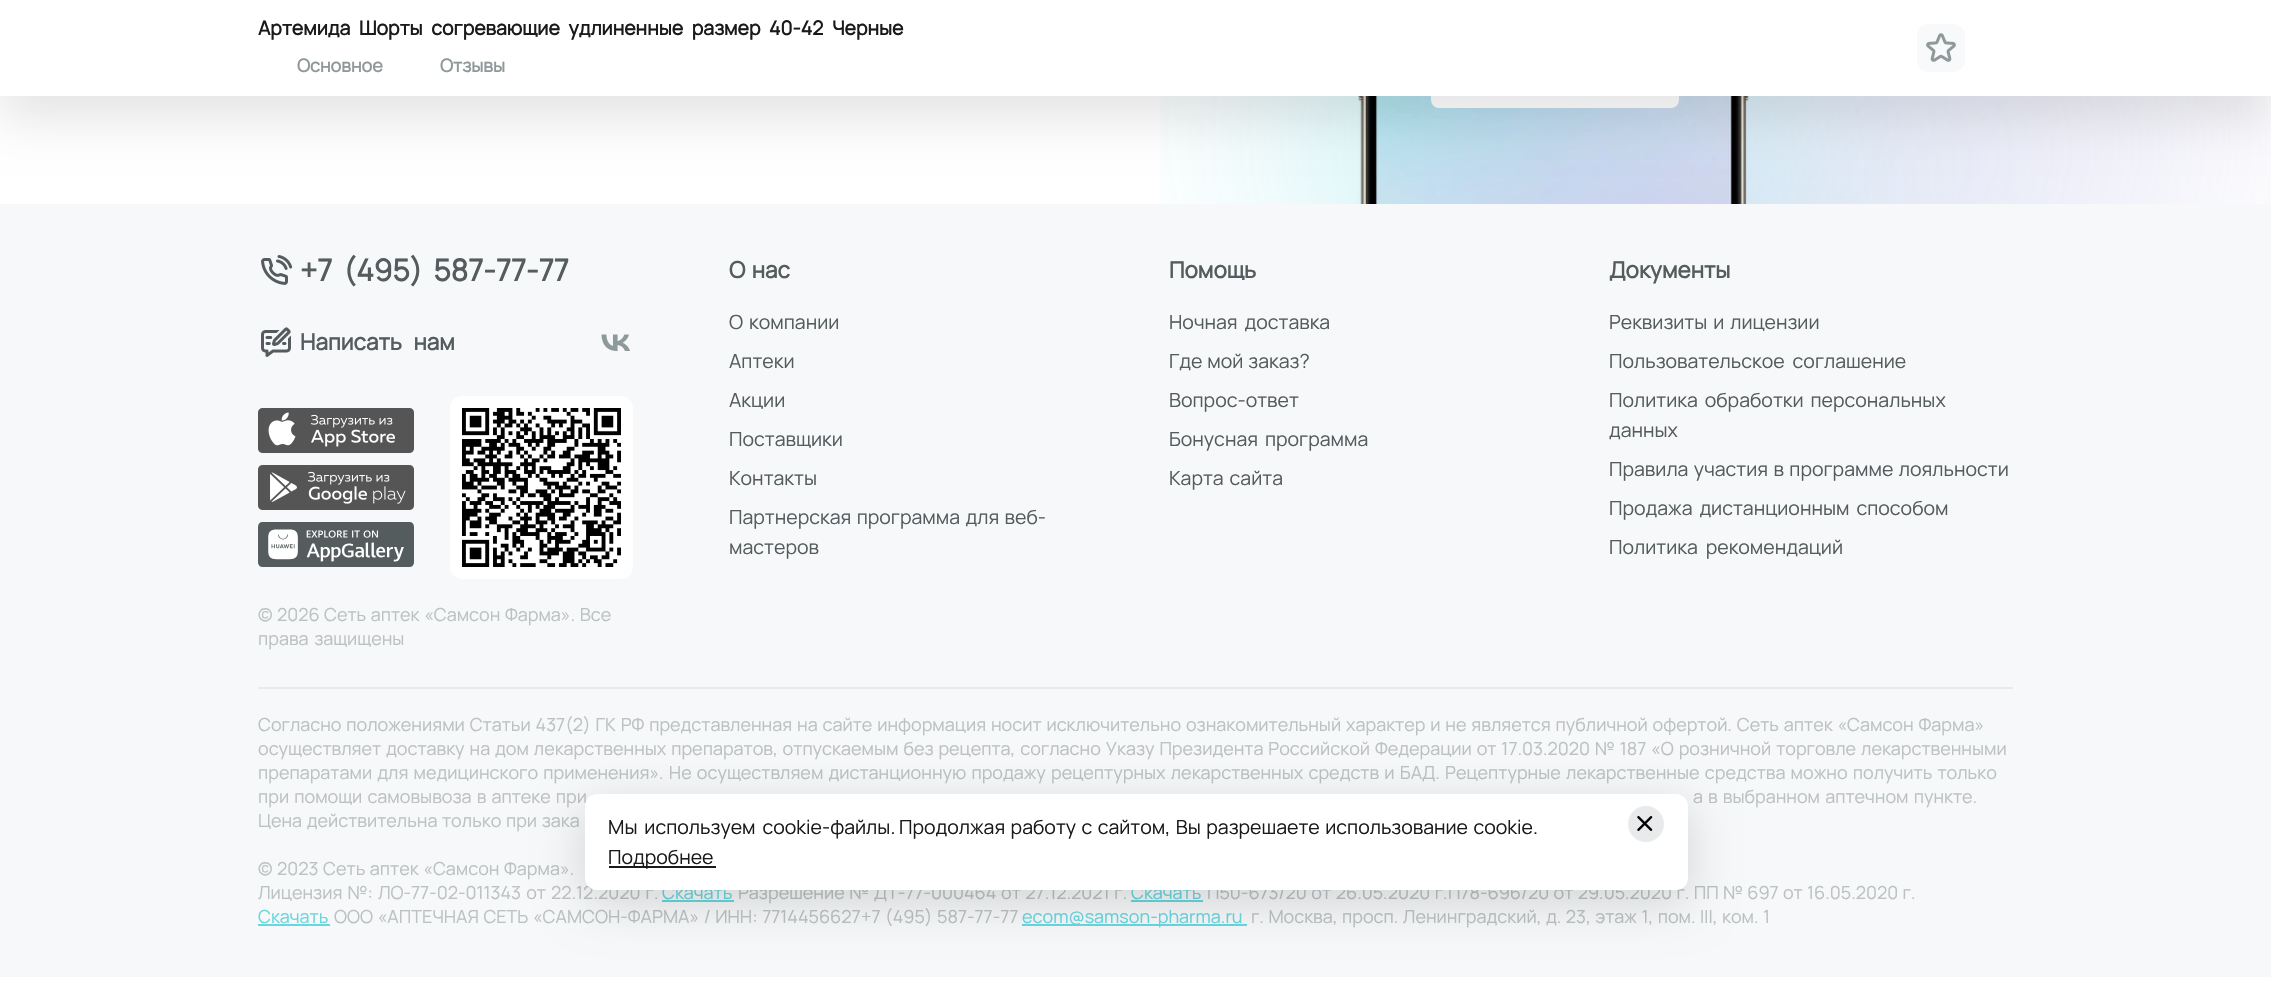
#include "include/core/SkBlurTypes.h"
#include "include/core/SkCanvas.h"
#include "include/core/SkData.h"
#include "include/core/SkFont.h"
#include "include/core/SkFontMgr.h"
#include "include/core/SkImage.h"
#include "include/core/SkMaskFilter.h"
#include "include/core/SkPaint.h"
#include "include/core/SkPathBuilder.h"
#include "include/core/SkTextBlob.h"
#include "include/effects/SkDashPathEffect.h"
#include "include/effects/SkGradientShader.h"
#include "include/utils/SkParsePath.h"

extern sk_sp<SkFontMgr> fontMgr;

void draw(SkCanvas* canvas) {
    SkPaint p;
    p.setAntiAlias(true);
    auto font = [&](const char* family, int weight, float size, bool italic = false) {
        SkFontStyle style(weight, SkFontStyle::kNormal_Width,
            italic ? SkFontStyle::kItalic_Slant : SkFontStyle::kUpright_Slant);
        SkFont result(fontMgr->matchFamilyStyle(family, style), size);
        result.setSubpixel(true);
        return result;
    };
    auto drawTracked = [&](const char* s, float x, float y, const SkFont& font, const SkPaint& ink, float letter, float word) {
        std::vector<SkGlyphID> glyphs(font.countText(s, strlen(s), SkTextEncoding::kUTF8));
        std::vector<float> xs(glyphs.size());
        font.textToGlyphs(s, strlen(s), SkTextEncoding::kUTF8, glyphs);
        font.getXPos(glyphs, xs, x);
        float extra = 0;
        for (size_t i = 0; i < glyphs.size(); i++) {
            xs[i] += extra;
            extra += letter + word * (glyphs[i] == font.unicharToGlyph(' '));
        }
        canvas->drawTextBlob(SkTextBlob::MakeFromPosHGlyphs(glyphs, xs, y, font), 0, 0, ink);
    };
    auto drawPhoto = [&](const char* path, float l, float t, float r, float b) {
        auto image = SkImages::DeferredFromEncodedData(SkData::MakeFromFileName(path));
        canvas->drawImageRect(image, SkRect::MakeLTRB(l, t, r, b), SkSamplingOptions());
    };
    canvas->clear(0xFFFFFFFF);
    drawPhoto("media/2.png", 1160, 96, 2271, 204);
    drawPhoto("media/3.png", 1358, 96, 1749, 204);
    p.setColor(0xFFFFFFFF);
    canvas->drawRoundRect(SkRect::MakeLTRB(1431, -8, 1679, 108), 8, 8, p);
    p.setColor(0x1A000000);
    p.setMaskFilter(SkMaskFilter::MakeBlur(kNormal_SkBlurStyle, 24));
    canvas->drawRect(SkRect::MakeLTRB(0, 24, 2271, 120), p);
    p.setMaskFilter(nullptr);
    p.setColor(0xFFFFFFFF);
    canvas->drawRect(SkRect::MakeLTRB(0, 0, 2271, 96), p);
    auto font1 = font("Manrope", 700, 19.5f);
    p.setColor(0xFF181A1B);
    drawTracked("Артемида Шорты согревающие удлиненные размер 40-42 Черные", 258, 35, font1, p, 0, 4.75f);
    p.setColor(0xFFF8F9FA);
    canvas->drawRoundRect(SkRect::MakeLTRB(1917, 24, 1965, 72), 12, 12, p);
    drawPhoto("media/1.png", 1926, 33, 1956, 62);
    auto font2 = font("Manrope", 700, 18);
    p.setColor(0xFF90999A);
    canvas->drawString("Основное", 297, 72, font2, p);
    canvas->drawString("Отзывы", 440, 72, font2, p);
    p.setColor(0xFFF6F8F9);
    canvas->drawRect(SkRect::MakeLTRB(0, 204, 2271, 977), p);
    drawPhoto("media/4.png", 261, 255, 293, 285);
    auto font3 = font("Manrope", 700, 30);
    p.setColor(0xFF555C5E);
    drawTracked("+7 (495) 587-77-77", 300, 281, font3, p, 0, 5);
    drawPhoto("media/5.png", 261, 327, 291, 357);
    auto font4 = font("Manrope", 700, 22.5f);
    drawTracked("Написать нам", 300, 350, font4, p, 0, 7);
    drawPhoto("media/6.png", 601, 334, 630, 351);
    drawPhoto("media/7.png", 258, 408, 414, 453);
    drawPhoto("media/8.png", 258, 465, 414, 510);
    drawPhoto("media/9.png", 258, 522, 414, 567);
    p.setColor(0xFFFFFFFF);
    canvas->drawRoundRect(SkRect::MakeLTRB(450, 396, 633, 579), 12, 12, p);
    drawPhoto("media/10.png", 462, 408, 621, 567);
    auto font5 = font("Manrope", 400, 18);
    p.setColor(0xFFBCC2C3);
    canvas->drawString("©", 258, 621, font5, p);
    canvas->drawString("2026", 277, 621, font5, p);
    drawTracked("Сеть аптек «Самсон Фарма». Все", 324, 621, font5, p, 0, 1);
    drawTracked("права защищены", 258, 645, font5, p, 0, 2);
    p.setColor(0xFF555C5E);
    drawTracked("О нас", 729, 278, font4, p, 0, 2);
    auto font6 = font("Manrope", 400, 19.5f);
    drawTracked("О компании", 729, 329, font6, p, 0, 2);
    {
        const struct { const char* s; float x, y; } items[] = {
            {"Аптеки", 729, 368},
            {"Акции", 729, 407},
            {"Поставщики", 729, 446},
            {"Контакты", 729, 485},
        };
        for (auto [s, x, y] : items) {
            canvas->drawString(s, x, y, font6, p);
        }
    }
    drawTracked("Партнерская программа для веб-", 729, 524, font6, p, 0, 1.5f);
    canvas->drawString("мастеров", 729, 554, font6, p);
    canvas->drawString("Помощь", 1169, 278, font4, p);
    drawTracked("Ночная доставка", 1169, 329, font6, p, 0, 3);
    drawTracked("Где мой заказ?", 1169, 368, font6, p, 0, 1);
    canvas->drawString("Вопрос-ответ", 1169, 407, font6, p);
    drawTracked("Бонусная программа", 1169, 446, font6, p, 0, 3);
    drawTracked("Карта сайта", 1169, 485, font6, p, 0, 2);
    canvas->drawString("Документы", 1609, 278, font4, p);
    drawTracked("Реквизиты и лицензии", 1609, 329, font6, p, 0, 2);
    drawTracked("Пользовательское соглашение", 1609, 368, font6, p, 0, 4);
    drawTracked("Политика обработки персональных", 1609, 407, font6, p, 0, 3);
    canvas->drawString("данных", 1609, 437, font6, p);
    drawTracked("Правила участия в программе лояльности", 1609, 476, font6, p, 0, 1.5f);
    drawTracked("Продажа дистанционным способом", 1609, 515, font6, p, 0, 3);
    drawTracked("Политика рекомендаций", 1609, 554, font6, p, 0, 4);
    p.setColor(0xFFE8EAEB);
    canvas->drawRect(SkRect::MakeLTRB(258, 687, 2013, 689), p);
    p.setColor(0xFFBCC2C3);
    drawTracked("Согласно положениями Статьи 437(2) ГК РФ представленная на сайте информация носит исключительно ознакомительный характер и не является публичной офертой. Сеть аптек «Самсон Фарма»", 258, 731, font5, p, 0, 1.25f);
    drawTracked("осуществляет доставку на дом лекарственных препаратов, отпускаемым без рецепта, согласно Указу Президента Российской Федерации от 17.03.2020 № 187 «О розничной торговле лекарственными", 258, 755, font5, p, 0, 1.3f);
    drawTracked("препаратами для медицинского применения». Не осуществляем дистанционную продажу рецептурных лекарственных средств и БАД. Рецептурные лекарственные средства можно получить только", 258, 779, font5, p, 0, 1.6f);
    drawTracked("при помощи самовывоза в аптеке при", 258, 803, font5, p, 0, 1.5f);
    drawTracked("а в выбранном аптечном пункте.", 1693, 803, font5, p, 0, 1.5f);
    drawTracked("Цена действительна только при зака", 258, 827, font5, p, 0, 1);
    drawTracked("© 2023 Сеть аптек «Самсон Фарма».", 258, 875, font5, p, 0, 1);
    drawTracked("Лицензия №: ЛО-77-02-011343 от 22.12.2020 г.", 258, 899, font5, p, 0, 1.5f);
    p.setColor(0xFF68D7E0);
    canvas->drawString("Скачать", 662, 899, font5, p);
    canvas->drawRect(SkRect::MakeLTRB(662, 900, 734, 902), p);
    p.setColor(0xFFBCC2C3);
    drawTracked("Разрешение № ДТ-77-000464 от 27.12.2021 г.", 738, 899, font5, p, 0, 1);
    p.setColor(0xFF68D7E0);
    canvas->drawString("Скачать", 1131, 899, font5, p);
    canvas->drawRect(SkRect::MakeLTRB(1131, 900, 1203, 902), p);
    p.setColor(0xFFBCC2C3);
    drawTracked("П50-673/20 от 26.05.2020 г.", 1207, 899, font5, p, 0, 1);
    drawTracked("П78-696/20 от 29.05.2020 г. ПП № 697 от 16.05.2020 г.", 1448, 899, font5, p, 0, 0.75f);
    p.setColor(0xFF68D7E0);
    canvas->drawString("Скачать", 258, 923, font5, p);
    canvas->drawRect(SkRect::MakeLTRB(258, 924, 330, 926), p);
    p.setColor(0xFFBCC2C3);
    drawTracked("ООО «АПТЕЧНАЯ СЕТЬ «САМСОН-ФАРМА» / ИНН: 7714456627", 334, 923, font5, p, 0, 1);
    drawTracked("+7 (495) 587-77-77", 861, 923, font5, p, 0, 1);
    p.setColor(0xFF68D7E0);
    canvas->drawRect(SkRect::MakeLTRB(1022, 924, 1247, 926), p);
    canvas->drawString("ecom@samson-pharma.ru", 1022, 923, font5, p);
    p.setColor(0xFFBCC2C3);
    drawTracked("г. Москва, просп. Ленинградский, д. 23, этаж 1, пом. III, ком. 1", 1251, 923, font5, p, 0, 0.9f);
    p.setColor(0x26000000);
    p.setMaskFilter(SkMaskFilter::MakeBlur(kNormal_SkBlurStyle, 24));
    canvas->drawRoundRect(SkRect::MakeLTRB(585, 806, 1688, 902), 12, 12, p);
    p.setMaskFilter(nullptr);
    p.setColor(0xFFFFFFFF);
    canvas->drawRoundRect(SkRect::MakeLTRB(585, 794, 1688, 890), 12, 12, p);
    p.setColor(0xFF181A1B);
    drawTracked("Мы используем cookie-файлы.", 608, 834, font6, p, 0, 3);
    drawTracked("Продолжая работу с сайтом, Вы разрешаете использование cookie.", 899, 834, font6, p, 0, 1.5f);
    p.setColor(0xFFE8EAEB);
    canvas->drawCircle(1646, 824, 18, p);
    drawPhoto("media/11.png", 1637, 816, 1653, 831);
    p.setColor(0xFF181A1B);
    canvas->drawRect(SkRect::MakeLTRB(609, 866, 716, 868), p);
    canvas->drawString("Подробнее", 608, 864, font6, p);
}
